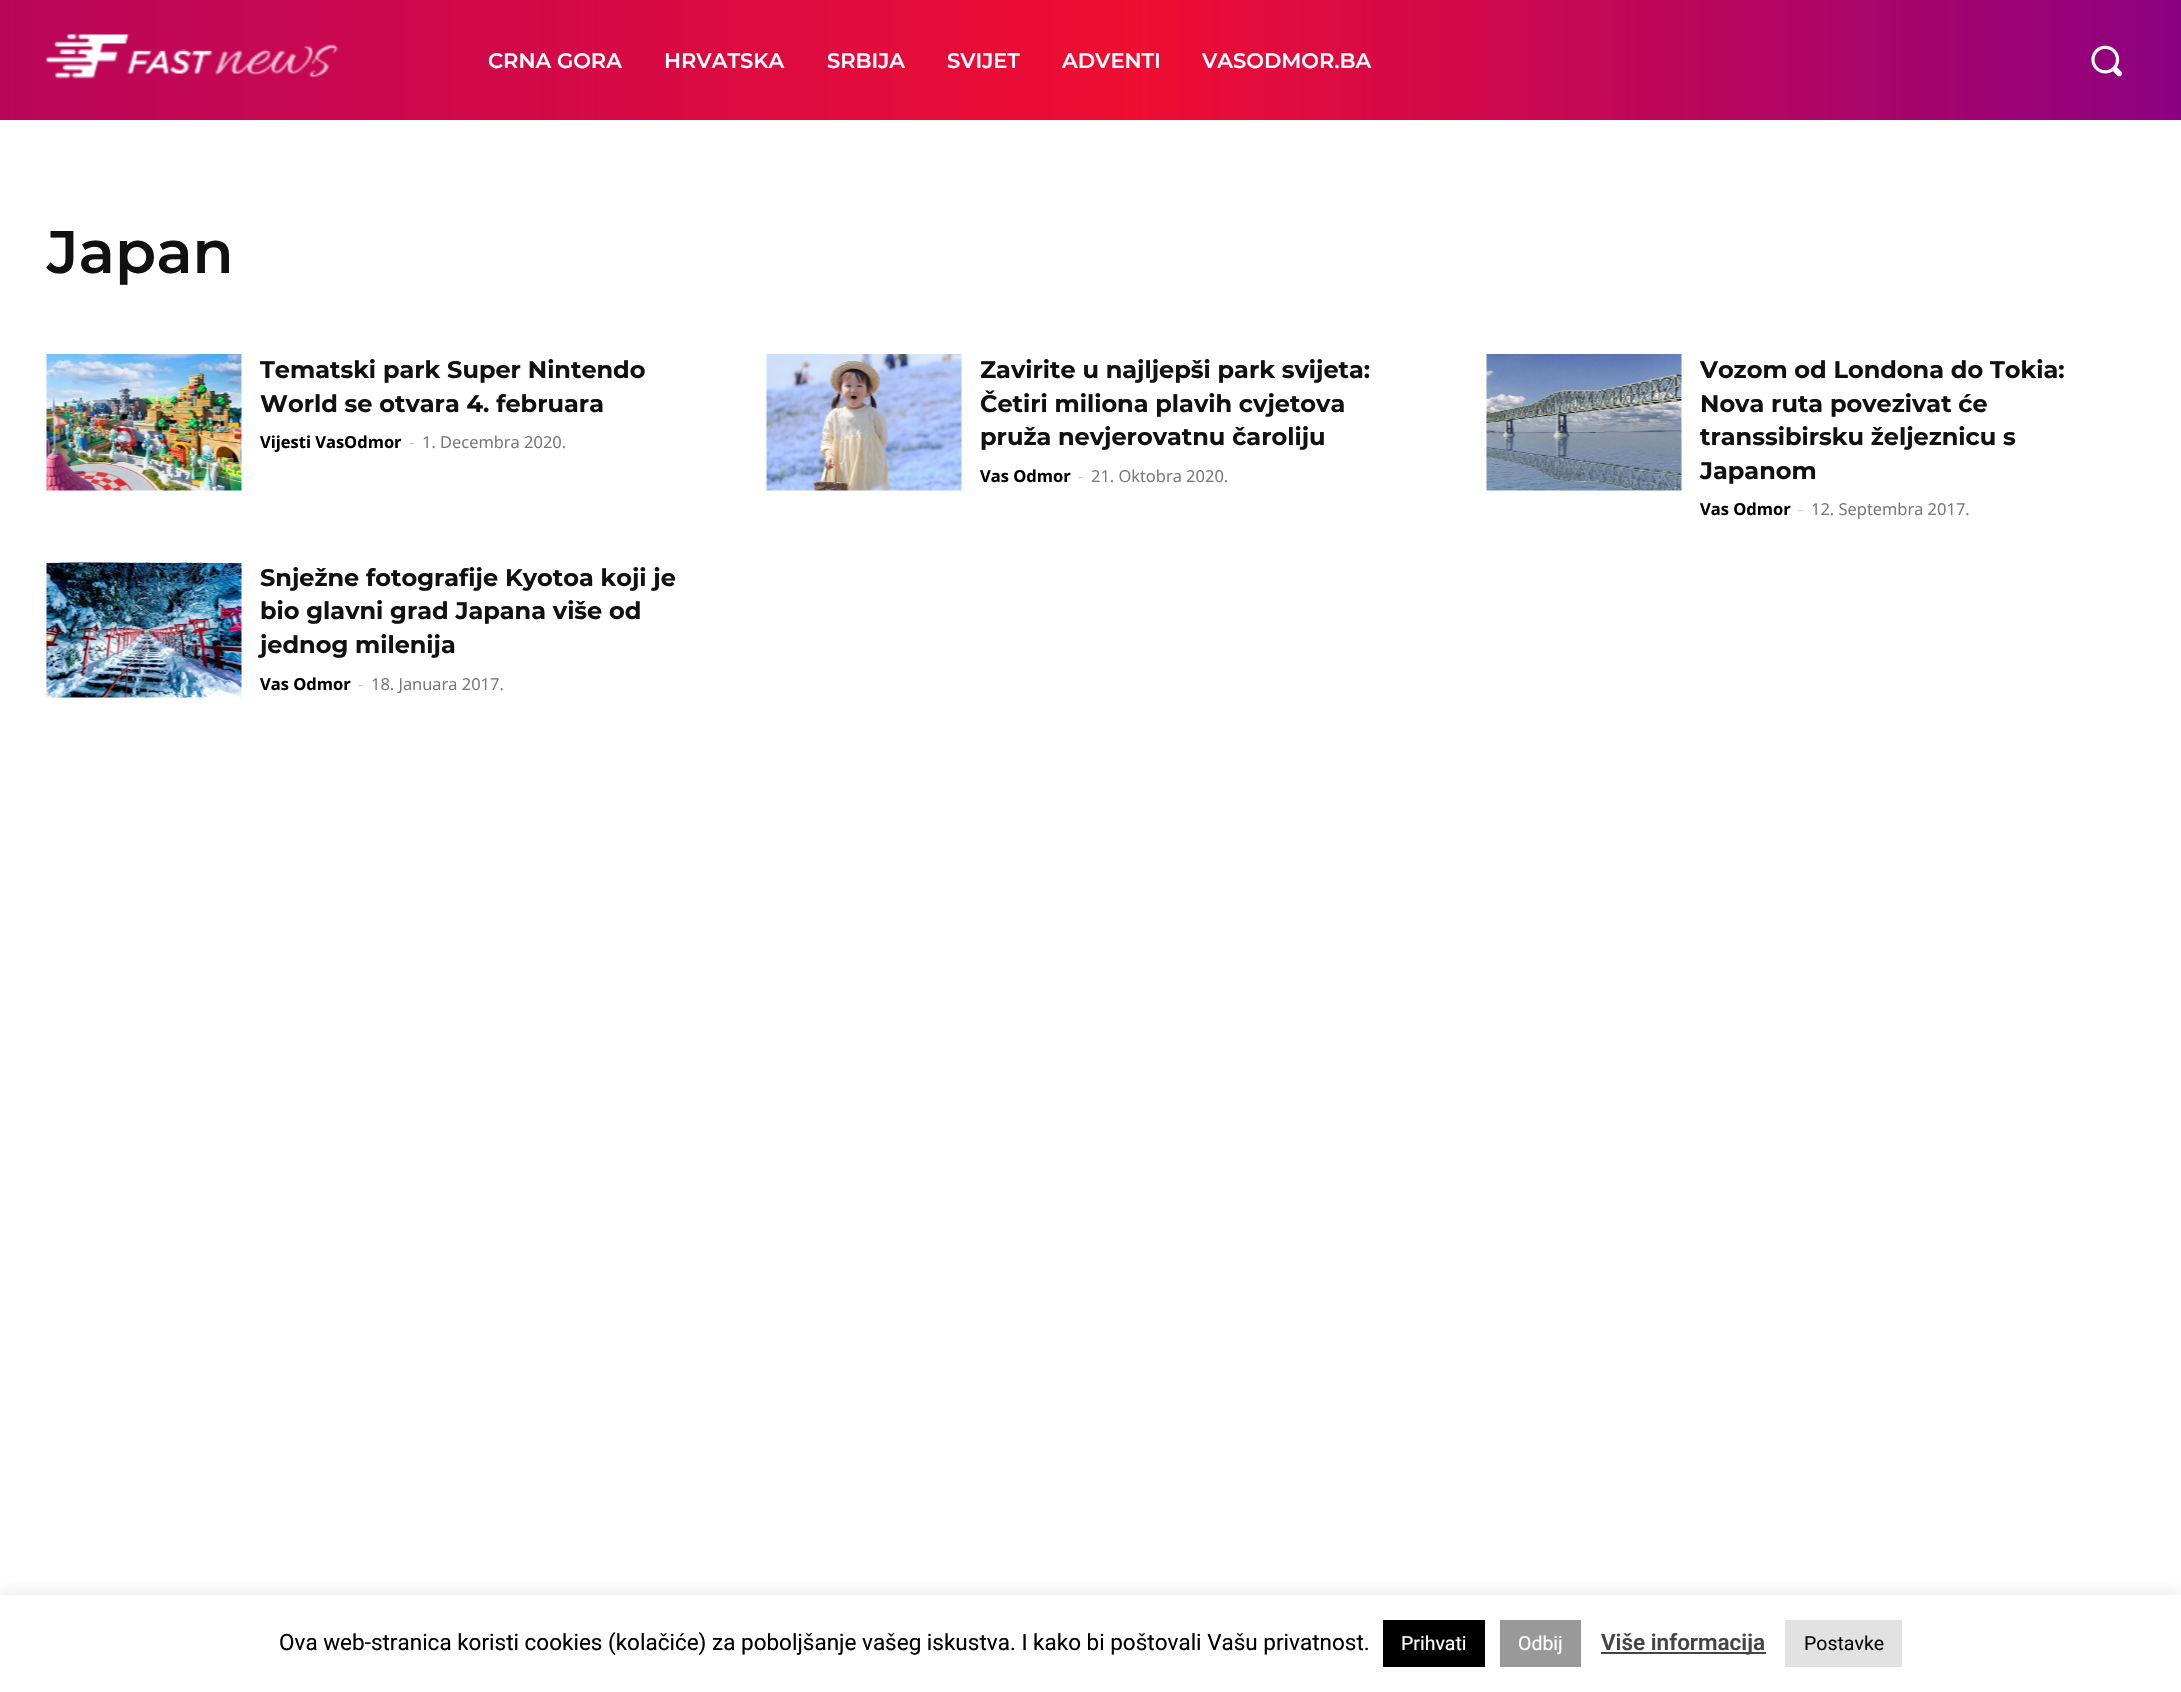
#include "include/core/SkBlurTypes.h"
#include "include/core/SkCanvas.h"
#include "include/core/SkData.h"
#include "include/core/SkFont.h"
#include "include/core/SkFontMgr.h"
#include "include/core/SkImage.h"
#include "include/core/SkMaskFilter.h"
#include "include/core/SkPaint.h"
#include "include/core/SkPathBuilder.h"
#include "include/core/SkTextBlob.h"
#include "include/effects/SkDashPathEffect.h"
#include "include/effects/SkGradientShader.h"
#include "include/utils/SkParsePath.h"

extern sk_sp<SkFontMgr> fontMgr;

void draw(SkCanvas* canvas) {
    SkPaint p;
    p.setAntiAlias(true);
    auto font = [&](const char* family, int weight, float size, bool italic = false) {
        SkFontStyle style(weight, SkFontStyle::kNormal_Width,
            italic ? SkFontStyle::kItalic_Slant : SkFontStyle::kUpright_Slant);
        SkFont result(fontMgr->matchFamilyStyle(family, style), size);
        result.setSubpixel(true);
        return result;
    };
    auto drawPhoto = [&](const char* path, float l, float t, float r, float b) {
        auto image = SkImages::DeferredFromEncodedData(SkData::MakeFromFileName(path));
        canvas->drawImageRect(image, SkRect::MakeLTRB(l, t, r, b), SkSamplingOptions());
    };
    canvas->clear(0xFFFFFFFF);
    {
        const SkColor colors[] = {0xFF8C0181, 0xFFEF0D32, 0xFFB9065B};
        const float stops[] = {0, 0.48f, 1};
        const SkPoint ends[] = {{2181, 60}, {0, 60}};
        p.setShader(SkGradientShader::MakeLinear(ends, colors, stops, 3, SkTileMode::kClamp));
        p.setAlpha(255);
    }
    canvas->drawRect(SkRect::MakeLTRB(0, 0, 2181, 120), p);
    drawPhoto("media/1.png", 46, 34, 339, 79);
    auto font1 = font("Montserrat", 600, 21);
    p.setShader(nullptr);
    p.setColor(0xFFFFFFFF);
    {
        const struct { const char* s; float x, y; } items[] = {
            {"CRNA GORA", 488, 68},
            {"HRVATSKA", 664, 68},
            {"SRBIJA", 827, 68},
            {"SVIJET", 947, 68},
            {"ADVENTI", 1062, 68},
            {"VASODMOR.BA", 1202, 68},
        };
        for (auto [s, x, y] : items) {
            canvas->drawString(s, x, y, font1, p);
        }
    }
    drawPhoto("media/2.png", 2091, 45, 2123, 77);
    auto font2 = font("Montserrat", 600, 60);
    p.setColor(0xFF111111);
    canvas->drawString("Japan", 47, 273, font2, p);
    drawPhoto("media/3.png", 46, 354, 242, 491);
    auto font3 = font("Montserrat", 700, 24);
    canvas->drawString("Tematski park Super Nintendo", 260, 378, font3, p);
    canvas->drawString("World se otvara 4. februara", 260, 412, font3, p);
    auto font4 = font("Open Sans", 700, 16.5f);
    p.setColor(0xFF000000);
    canvas->drawString("Vijesti VasOdmor", 260, 448, font4, p);
    auto font5 = font("Open Sans", 400, 16.5f);
    p.setColor(0xFFCCCCCC);
    canvas->drawString("-", 409, 448, font5, p);
    p.setColor(0xFF767676);
    canvas->drawString("1. Decembra 2020.", 422, 448, font5, p);
    drawPhoto("media/4.png", 766, 354, 962, 491);
    p.setColor(0xFF111111);
    {
        const struct { const char* s; float x, y; } items[] = {
            {"Zavirite u najljepši park svijeta:", 980, 378},
            {"Četiri miliona plavih cvjetova", 980, 412},
            {"pruža nevjerovatnu čaroliju", 980, 445},
        };
        for (auto [s, x, y] : items) {
            canvas->drawString(s, x, y, font3, p);
        }
    }
    p.setColor(0xFF000000);
    canvas->drawString("Vas Odmor", 980, 482, font4, p);
    p.setColor(0xFFCCCCCC);
    canvas->drawString("-", 1078, 482, font5, p);
    p.setColor(0xFF767676);
    canvas->drawString("21. Oktobra 2020.", 1091, 482, font5, p);
    drawPhoto("media/5.png", 1486, 354, 1682, 491);
    p.setColor(0xFF111111);
    {
        const struct { const char* s; float x, y; } items[] = {
            {"Vozom od Londona do Tokia:", 1700, 378},
            {"Nova ruta povezivat će", 1700, 412},
            {"transsibirsku željeznicu s", 1700, 445},
            {"Japanom", 1700, 479},
        };
        for (auto [s, x, y] : items) {
            canvas->drawString(s, x, y, font3, p);
        }
    }
    p.setColor(0xFF000000);
    canvas->drawString("Vas Odmor", 1700, 515, font4, p);
    p.setColor(0xFFCCCCCC);
    canvas->drawString("-", 1798, 515, font5, p);
    p.setColor(0xFF767676);
    canvas->drawString("12. Septembra 2017.", 1811, 515, font5, p);
    drawPhoto("media/6.png", 46, 562, 242, 698);
    p.setColor(0xFF111111);
    {
        const struct { const char* s; float x, y; } items[] = {
            {"Snježne fotografije Kyotoa koji je", 260, 586},
            {"bio glavni grad Japana više od", 260, 619},
            {"jednog milenija", 260, 653},
        };
        for (auto [s, x, y] : items) {
            canvas->drawString(s, x, y, font3, p);
        }
    }
    p.setColor(0xFF000000);
    canvas->drawString("Vas Odmor", 260, 690, font4, p);
    p.setColor(0xFFCCCCCC);
    canvas->drawString("-", 358, 690, font5, p);
    p.setColor(0xFF767676);
    canvas->drawString("18. Januara 2017.", 371, 690, font5, p);
    canvas->save();
    canvas->clipRect(SkRect::MakeLTRB(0, 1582, 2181, 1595));
    p.setColor(0x4DACABAB);
    p.setMaskFilter(SkMaskFilter::MakeBlur(kNormal_SkBlurStyle, 7.5f));
    canvas->drawRect(SkRect::MakeLTRB(0, 1593, 2181, 1691), p);
    p.setMaskFilter(nullptr);
    canvas->restore();
    auto font6 = font("Roboto", 400, 22.5f);
    p.setColor(0xFF000000);
    canvas->drawString("Ova web-stranica koristi cookies (kolačiće) za poboljšanje vašeg iskustva. I kako bi poštovali Vašu privatnost.", 279, 1650, font6, p);
    canvas->drawRect(SkRect::MakeLTRB(1383, 1620, 1485, 1667), p);
    auto font7 = font("Roboto", 400, 19.5f);
    p.setColor(0xFFFFFFFF);
    canvas->drawString("Prihvati", 1401, 1650, font7, p);
    p.setColor(0xFF999999);
    canvas->drawRect(SkRect::MakeLTRB(1500, 1620, 1581, 1667), p);
    p.setColor(0xFFFFFFFF);
    canvas->drawString("Odbij", 1518, 1650, font7, p);
    p.setColor(0xFF444444);
    canvas->drawRect(SkRect::MakeLTRB(1601, 1652, 1766, 1654), p);
    auto font8 = font("Roboto", 600, 22.5f);
    canvas->drawString("Više informacija", 1601, 1650, font8, p);
    p.setColor(0xFFE2E2E2);
    canvas->drawRect(SkRect::MakeLTRB(1785, 1620, 1902, 1667), p);
    p.setColor(0xFF0A0A0A);
    canvas->drawString("Postavke", 1804, 1650, font7, p);
}
